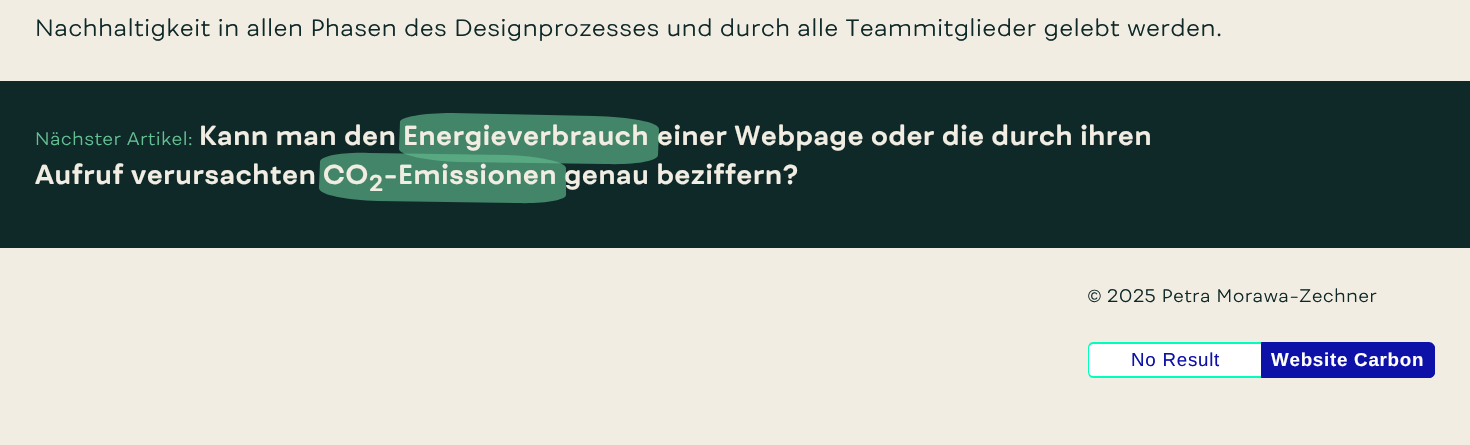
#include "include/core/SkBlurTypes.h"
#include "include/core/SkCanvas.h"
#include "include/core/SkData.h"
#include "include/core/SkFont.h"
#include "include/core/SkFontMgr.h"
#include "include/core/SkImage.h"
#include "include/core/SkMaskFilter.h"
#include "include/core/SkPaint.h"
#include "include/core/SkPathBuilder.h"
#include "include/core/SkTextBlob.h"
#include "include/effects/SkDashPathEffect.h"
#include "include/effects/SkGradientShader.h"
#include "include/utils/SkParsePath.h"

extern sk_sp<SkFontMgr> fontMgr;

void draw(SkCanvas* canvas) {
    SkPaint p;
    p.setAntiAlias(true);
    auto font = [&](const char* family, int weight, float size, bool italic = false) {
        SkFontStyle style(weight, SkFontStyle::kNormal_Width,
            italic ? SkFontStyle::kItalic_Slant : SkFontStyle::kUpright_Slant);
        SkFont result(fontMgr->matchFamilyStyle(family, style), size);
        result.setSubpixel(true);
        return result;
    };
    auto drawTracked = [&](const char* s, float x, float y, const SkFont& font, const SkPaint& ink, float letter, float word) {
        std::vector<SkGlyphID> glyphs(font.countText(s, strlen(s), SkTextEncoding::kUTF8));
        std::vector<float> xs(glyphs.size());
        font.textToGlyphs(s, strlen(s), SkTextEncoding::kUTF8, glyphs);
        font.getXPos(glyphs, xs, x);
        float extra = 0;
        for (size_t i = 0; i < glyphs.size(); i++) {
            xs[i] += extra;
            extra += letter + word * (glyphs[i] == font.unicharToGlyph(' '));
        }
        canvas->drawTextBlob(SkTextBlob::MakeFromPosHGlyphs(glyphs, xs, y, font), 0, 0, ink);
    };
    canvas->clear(0xFFF1EDE2);
    auto font1 = font("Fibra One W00", 300, 22.75f);
    p.setColor(0xFF0F2929);
    drawTracked("Nachhaltigkeit in allen Phasen des Designprozesses und durch alle Teammitglieder gelebt werden.", 35, 36, font1, p, 0.75f, 0);
    canvas->drawRect(SkRect::MakeLTRB(0, 81, 1470, 248), p);
    auto font2 = font("Fibra One W00", 700, 26.25f);
    p.setColor(0xFFF1EDE2);
    {
        const struct { const char* s; float x, y; } items[] = {
            {"Kann man den", 199, 145},
            {"einer Webpage oder die durch ihren", 657, 145},
            {"genau beziffern?", 564, 184},
        };
        for (auto [s, x, y] : items) {
            drawTracked(s, x, y, font2, p, 0.75f, 0);
        }
    }
    p.setColor(0x9965C193);
    canvas->drawPath(SkPathBuilder().moveTo(452, 113).lineTo(594, 116).cubicTo(630, 117, 659, 122, 659, 129).lineTo(658, 155).cubicTo(658, 161, 635, 165, 606, 164).lineTo(461, 162).cubicTo(427, 161, 399, 155, 399, 149).lineTo(400, 122).cubicTo(400, 117, 423, 113, 452, 113).close().detach(), p);
    p.setColor(0xFFF1EDE2);
    drawTracked("Energieverbrauch", 403, 145, font2, p, 0.75f, 0);
    drawTracked("Aufruf verursachten", 35, 184, font2, p, 0.75f, 0);
    p.setColor(0x9965C193);
    canvas->drawPath(SkPathBuilder().moveTo(369, 153).lineTo(505, 155).cubicTo(539, 156, 566, 162, 566, 168).lineTo(566, 195).cubicTo(566, 200, 544, 204, 516, 203).lineTo(378, 201).cubicTo(346, 200, 319, 195, 319, 188).lineTo(320, 162).cubicTo(320, 156, 342, 152, 369, 153).close().detach(), p);
    p.setColor(0xFFF1EDE2);
    drawTracked("CO", 323, 184, font2, p, 0.75f, 0);
    auto font3 = font("Fibra One W00", 700, 22);
    drawTracked("2", 369, 191, font3, p, 0.75f, 0);
    drawTracked("-Emissionen", 384, 184, font2, p, 0.75f, 0);
    auto font4 = font("Fibra One W00", 300, 17.5f);
    p.setColor(0xFF65C193);
    drawTracked("Nächster Artikel:", 35, 145, font4, p, 0.75f, 0);
    auto font5 = font("Liberation Sans", 400, 17.5f);
    p.setColor(0xFF0F2929);
    drawTracked("©", 1088, 302, font5, p, 0.75f, 0);
    drawTracked("2025 Petra Morawa-Zechner", 1107, 302, font4, p, 0.75f, 0);
    p.setColor(0xFFFFFFFF);
    canvas->drawPath(SkPathBuilder().moveTo(1094, 343).lineTo(1261, 343).lineTo(1261, 378).lineTo(1094, 378).cubicTo(1090.5f, 378, 1088, 375.5f, 1088, 372).lineTo(1088, 349).cubicTo(1088, 345.5f, 1090.5f, 343, 1094, 343).close().detach(), p);
    p.setColor(0xFF00FFBC);
    canvas->drawPath(SkPathBuilder(SkPathFillType::kEvenOdd).moveTo(1093, 342).lineTo(1261, 342).lineTo(1261, 378).lineTo(1093, 378).cubicTo(1090, 378, 1088, 375, 1088, 372).lineTo(1088, 348).cubicTo(1088, 345, 1090, 342, 1093, 342).close().moveTo(1093, 344).lineTo(1261, 344).lineTo(1261, 376).lineTo(1093, 376).cubicTo(1091, 376, 1089, 374, 1089, 372).lineTo(1089, 348).cubicTo(1089, 346, 1091, 344, 1093, 344).close().detach(), p);
    auto font6 = font("Liberation Sans", 400, 18.75f);
    p.setColor(0xFF0E11A8);
    drawTracked("No Result", 1131, 366, font6, p, 0.75f, 0);
    canvas->drawPath(SkPathBuilder().moveTo(1261, 343).lineTo(1429, 343).cubicTo(1432.5f, 343, 1435, 345.5f, 1435, 349).lineTo(1435, 372).cubicTo(1435, 375.5f, 1432.5f, 378, 1429, 378).lineTo(1261, 378).close().detach(), p);
    canvas->drawPath(SkPathBuilder(SkPathFillType::kEvenOdd).moveTo(1261, 342).lineTo(1429, 342).cubicTo(1432, 342, 1435, 345, 1435, 348).lineTo(1435, 372).cubicTo(1435, 375, 1432, 378, 1429, 378).lineTo(1261, 378).close().moveTo(1261, 344).lineTo(1429, 344).cubicTo(1432, 344, 1434, 346, 1434, 348).lineTo(1434, 372).cubicTo(1434, 374, 1432, 376, 1429, 376).lineTo(1261, 376).close().detach(), p);
    auto font7 = font("Liberation Sans", 700, 18.75f);
    p.setColor(0xFFFFFFFF);
    drawTracked("Website Carbon", 1271, 366, font7, p, 0.75f, 0);
}
